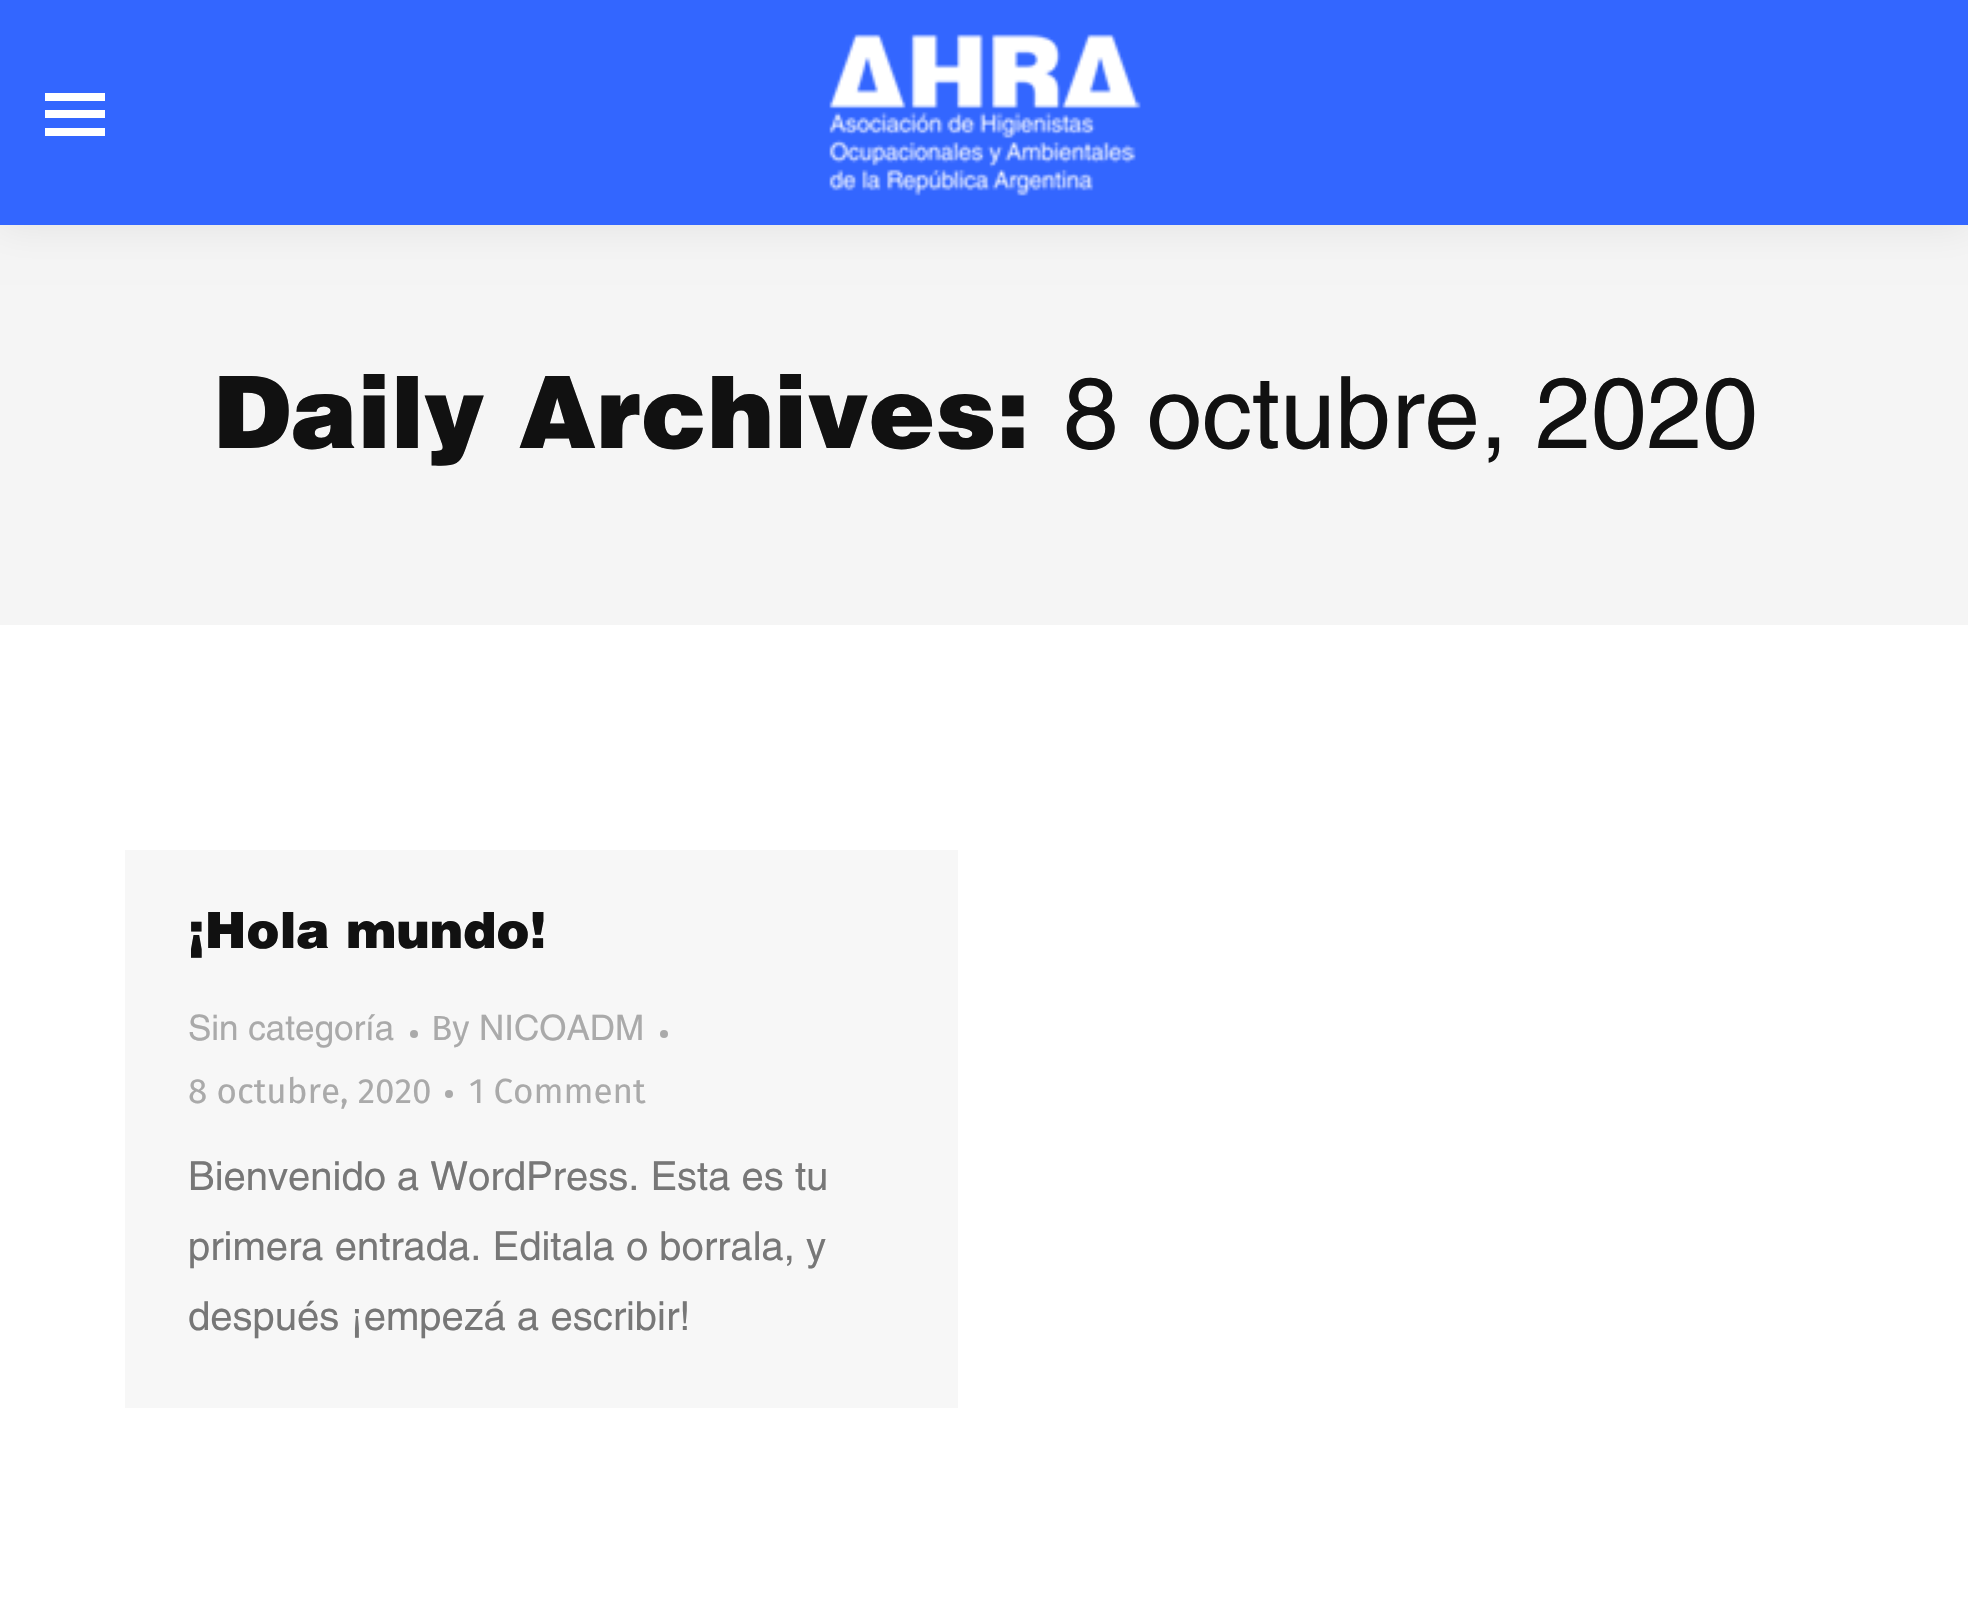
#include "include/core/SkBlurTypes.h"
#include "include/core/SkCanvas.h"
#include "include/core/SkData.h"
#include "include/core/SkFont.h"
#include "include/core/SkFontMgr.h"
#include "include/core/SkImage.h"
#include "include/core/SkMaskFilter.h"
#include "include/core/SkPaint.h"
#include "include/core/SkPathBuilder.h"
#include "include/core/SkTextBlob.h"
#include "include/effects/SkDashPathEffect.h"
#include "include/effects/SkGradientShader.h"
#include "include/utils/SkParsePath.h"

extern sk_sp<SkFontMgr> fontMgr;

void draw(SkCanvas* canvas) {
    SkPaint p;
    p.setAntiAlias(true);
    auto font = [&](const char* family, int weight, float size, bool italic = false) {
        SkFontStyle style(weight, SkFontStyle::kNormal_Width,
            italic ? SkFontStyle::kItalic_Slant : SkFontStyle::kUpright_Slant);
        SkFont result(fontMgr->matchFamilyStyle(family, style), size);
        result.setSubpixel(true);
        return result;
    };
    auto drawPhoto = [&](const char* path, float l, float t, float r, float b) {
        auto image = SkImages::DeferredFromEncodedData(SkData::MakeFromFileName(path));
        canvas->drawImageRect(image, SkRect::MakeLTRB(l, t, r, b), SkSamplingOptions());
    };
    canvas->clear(0xFFFFFFFF);
    p.setColor(0xFFF5F5F5);
    canvas->drawRect(SkRect::MakeLTRB(0, 225, 1968, 625), p);
    p.setColor(0x12000000);
    p.setMaskFilter(SkMaskFilter::MakeBlur(kNormal_SkBlurStyle, 19));
    canvas->drawRect(SkRect::MakeLTRB(-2, -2, 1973, 228), p);
    p.setMaskFilter(nullptr);
    {
        const struct { float l, t, r, b; SkColor color; } items[] = {
            {0, 0, 1968, 225, 0xFF3366FF},
            {45, 93, 105, 101, 0xFFFFFFFF},
            {45, 110, 105, 118, 0xFFFFFFFF},
            {45, 128, 105, 136, 0xFFFFFFFF},
        };
        for (auto [l, t, r, b, color] : items) {
            p.setColor(color);
            canvas->drawRect(SkRect::MakeLTRB(l, t, r, b), p);
        }
    }
    drawPhoto("media/1.png", 829, 34, 1141, 196);
    auto font1 = font("Helvetica", 900, 100);
    p.setColor(0xFF111111);
    canvas->drawString("Daily Archives:", 213, 448, font1, p);
    auto font2 = font("Helvetica", 400, 100);
    canvas->drawString("8 octubre, 2020", 1063, 448, font2, p);
    p.setColor(0xFFF7F7F7);
    canvas->drawRect(SkRect::MakeLTRB(125, 850, 958, 1408), p);
    auto font3 = font("Helvetica", 900, 50);
    p.setColor(0xFF111111);
    canvas->drawString("¡Hola mundo!", 188, 948, font3, p);
    auto font4 = font("Helvetica", 400, 35);
    p.setColor(0xFFAAAAAA);
    canvas->drawString("Sin categoría", 188, 1040, font4, p);
    canvas->drawCircle(414, 1034, 4, p);
    auto font5 = font("Fira Sans", 400, 35);
    canvas->drawString("By", 431, 1040, font5, p);
    canvas->drawString("NICOADM", 479, 1040, font4, p);
    canvas->drawCircle(664, 1034, 4, p);
    canvas->drawString("8 octubre, 2020", 188, 1103, font5, p);
    canvas->drawCircle(449, 1094, 4, p);
    canvas->drawString("1 Comment", 469, 1103, font5, p);
    auto font6 = font("Helvetica", 400, 40);
    p.setColor(0xFF777777);
    {
        const struct { const char* s; float x, y; } items[] = {
            {"Bienvenido a WordPress. Esta es tu", 188, 1190},
            {"primera entrada. Editala o borrala, y", 188, 1260},
            {"después ¡empezá a escribir!", 188, 1330},
        };
        for (auto [s, x, y] : items) {
            canvas->drawString(s, x, y, font6, p);
        }
    }
}
